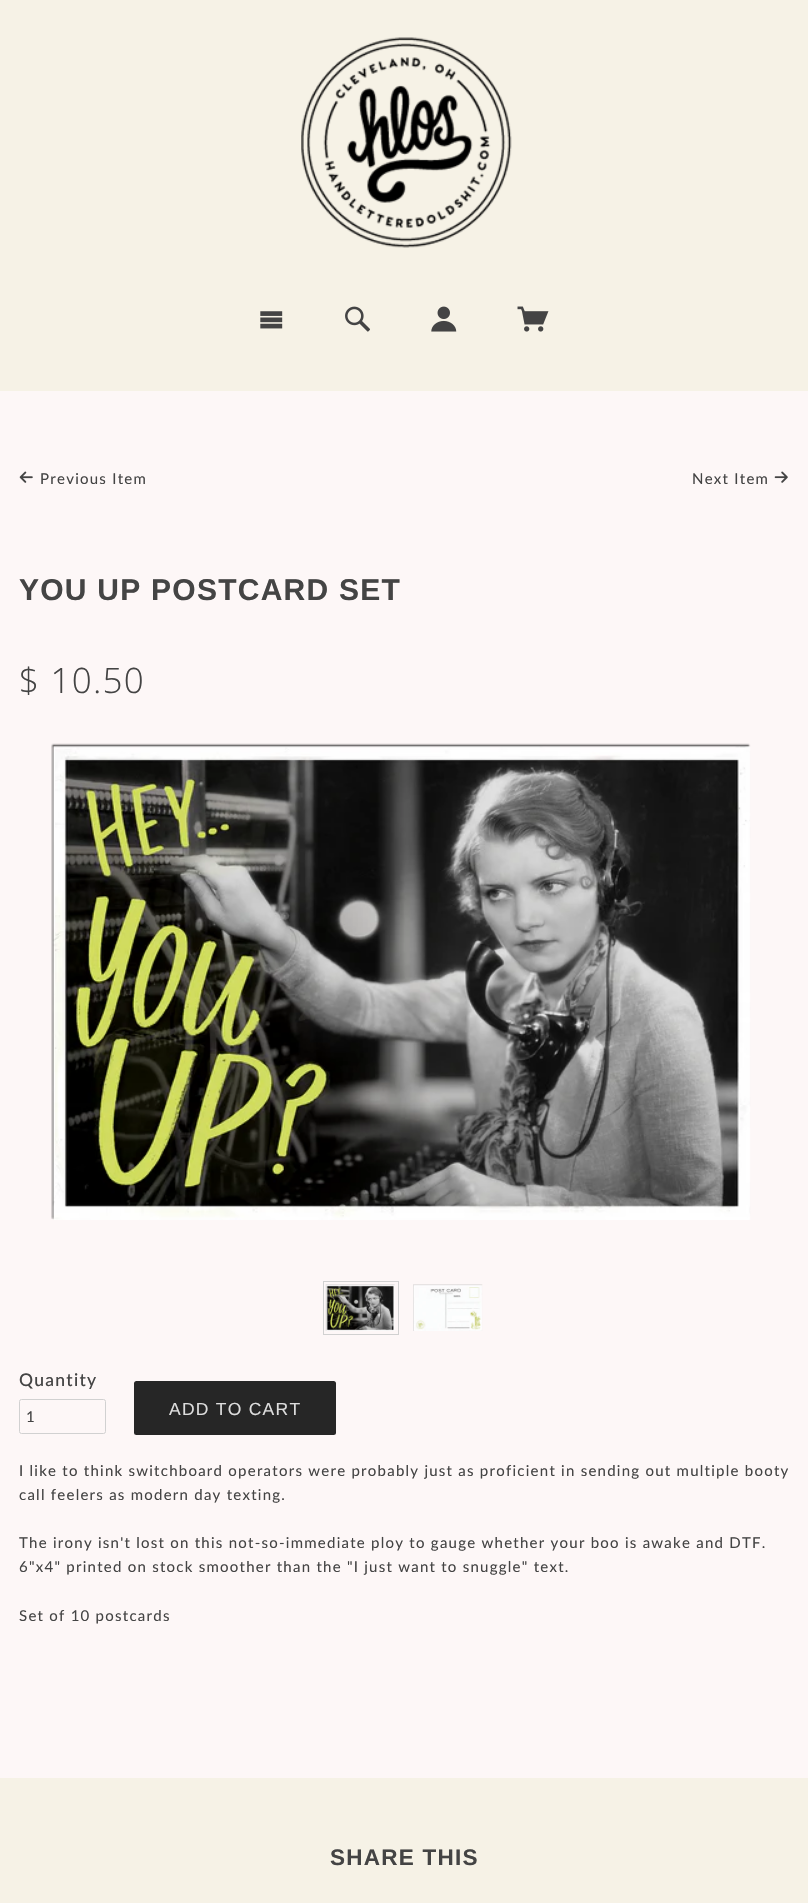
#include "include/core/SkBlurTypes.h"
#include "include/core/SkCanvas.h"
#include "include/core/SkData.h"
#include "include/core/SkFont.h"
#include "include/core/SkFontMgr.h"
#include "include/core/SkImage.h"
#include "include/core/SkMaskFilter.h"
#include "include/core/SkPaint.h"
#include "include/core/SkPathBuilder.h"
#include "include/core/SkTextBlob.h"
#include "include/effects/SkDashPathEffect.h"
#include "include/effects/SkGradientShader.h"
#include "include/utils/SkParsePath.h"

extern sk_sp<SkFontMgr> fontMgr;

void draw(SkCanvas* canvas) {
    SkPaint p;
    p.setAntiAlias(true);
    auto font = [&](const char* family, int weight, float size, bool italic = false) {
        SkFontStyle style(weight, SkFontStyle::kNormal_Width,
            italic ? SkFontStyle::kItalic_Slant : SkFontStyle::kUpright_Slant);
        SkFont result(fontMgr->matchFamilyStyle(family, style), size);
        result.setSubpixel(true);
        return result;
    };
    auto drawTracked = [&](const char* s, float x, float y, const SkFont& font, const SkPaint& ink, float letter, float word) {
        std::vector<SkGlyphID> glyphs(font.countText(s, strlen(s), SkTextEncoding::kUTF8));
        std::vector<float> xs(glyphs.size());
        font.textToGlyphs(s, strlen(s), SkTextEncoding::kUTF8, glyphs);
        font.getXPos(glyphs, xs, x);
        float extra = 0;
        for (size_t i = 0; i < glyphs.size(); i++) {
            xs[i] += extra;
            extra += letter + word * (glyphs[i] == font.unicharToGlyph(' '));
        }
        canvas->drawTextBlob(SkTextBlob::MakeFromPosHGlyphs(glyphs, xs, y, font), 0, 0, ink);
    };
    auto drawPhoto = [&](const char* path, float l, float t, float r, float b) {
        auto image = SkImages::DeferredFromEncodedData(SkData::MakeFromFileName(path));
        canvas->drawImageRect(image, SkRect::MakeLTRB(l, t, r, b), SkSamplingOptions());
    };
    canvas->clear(0xFFFDF7F7);
    p.setColor(0xFFF6F2E6);
    canvas->drawRect(SkRect::MakeLTRB(0, 0, 808, 391), p);
    drawPhoto("media/1.png", 301, 37, 512, 248);
    drawPhoto("media/2.png", 260, 311, 283, 329);
    drawPhoto("media/3.png", 345, 306, 370, 332);
    drawPhoto("media/4.png", 431, 306, 457, 332);
    drawPhoto("media/5.png", 517, 306, 549, 332);
    drawPhoto("media/6.png", 19, 471, 33, 483);
    auto font1 = font("Lato", 400, 15);
    p.setColor(0xFF444444);
    drawTracked("Previous Item", 40, 484, font1, p, 1.25f, 0);
    drawTracked("Next Item", 692, 484, font1, p, 1.25f, 0);
    drawPhoto("media/7.png", 774, 471, 788, 483);
    auto font2 = font("Liberation Sans", 700, 30);
    drawTracked("YOU UP POSTCARD SET", 19, 600, font2, p, 1.25f, 0);
    auto font3 = font("Open Sans", 300, 35);
    drawTracked("$ 10.50", 19, 693, font3, p, 1.25f, 0);
    drawPhoto("media/8.png", 51, 743, 751, 1220);
    drawPhoto("media/9.png", 325, 1284, 395, 1331);
    p.setStyle(SkPaint::kStroke_Style);
    p.setStrokeWidth(1);
    p.setColor(0xFFD1D1D1);
    canvas->drawRect(SkRect::MakeLTRB(323.5f, 1281.5f, 398.5f, 1334.5f), p);
    drawPhoto("media/10.png", 413, 1284, 483, 1331);
    auto font4 = font("Lato", 500, 17.5f);
    p.setStyle(SkPaint::kFill_Style);
    p.setColor(0xFF444444);
    drawTracked("Quantity", 19, 1386, font4, p, 1.25f, 0);
    p.setStyle(SkPaint::kStroke_Style);
    p.setColor(0xFFD1D1D1);
    canvas->drawRoundRect(SkRect::MakeLTRB(19.5f, 1399.5f, 105.5f, 1433.5f), 2, 2, p);
    p.setStyle(SkPaint::kFill_Style);
    p.setColor(0xFF444444);
    drawTracked("1", 26, 1422, font1, p, 1, 0);
    p.setColor(0xFF262626);
    canvas->drawRoundRect(SkRect::MakeLTRB(134, 1381, 336, 1435), 2.5f, 2.5f, p);
    auto font5 = font("Liberation Sans", 400, 17.5f);
    p.setColor(0xFFDDDDDD);
    drawTracked("ADD TO CART", 169, 1415, font5, p, 1.25f, 0);
    p.setColor(0xFF444444);
    {
        const struct { const char* s; float x, y; } items[] = {
            {"I like to think switchboard operators were probably just as proficient in sending out multiple booty", 19, 1476},
            {"call feelers as modern day texting.", 19, 1500},
            {"The irony isn't lost on this not-so-immediate ploy to gauge whether your boo is awake and DTF.", 19, 1548},
            {"6\"x4\" printed on stock smoother than the \"I just want to snuggle\" text.", 19, 1572},
            {"Set of 10 postcards", 19, 1621},
        };
        for (auto [s, x, y] : items) {
            drawTracked(s, x, y, font1, p, 1.25f, 0);
        }
    }
    p.setColor(0xFFF6F2E6);
    canvas->drawRect(SkRect::MakeLTRB(0, 1778, 808, 1903), p);
    auto font6 = font("Liberation Sans", 700, 22.5f);
    p.setColor(0xFF444444);
    drawTracked("SHARE THIS", 330, 1865, font6, p, 1.25f, 0);
}
